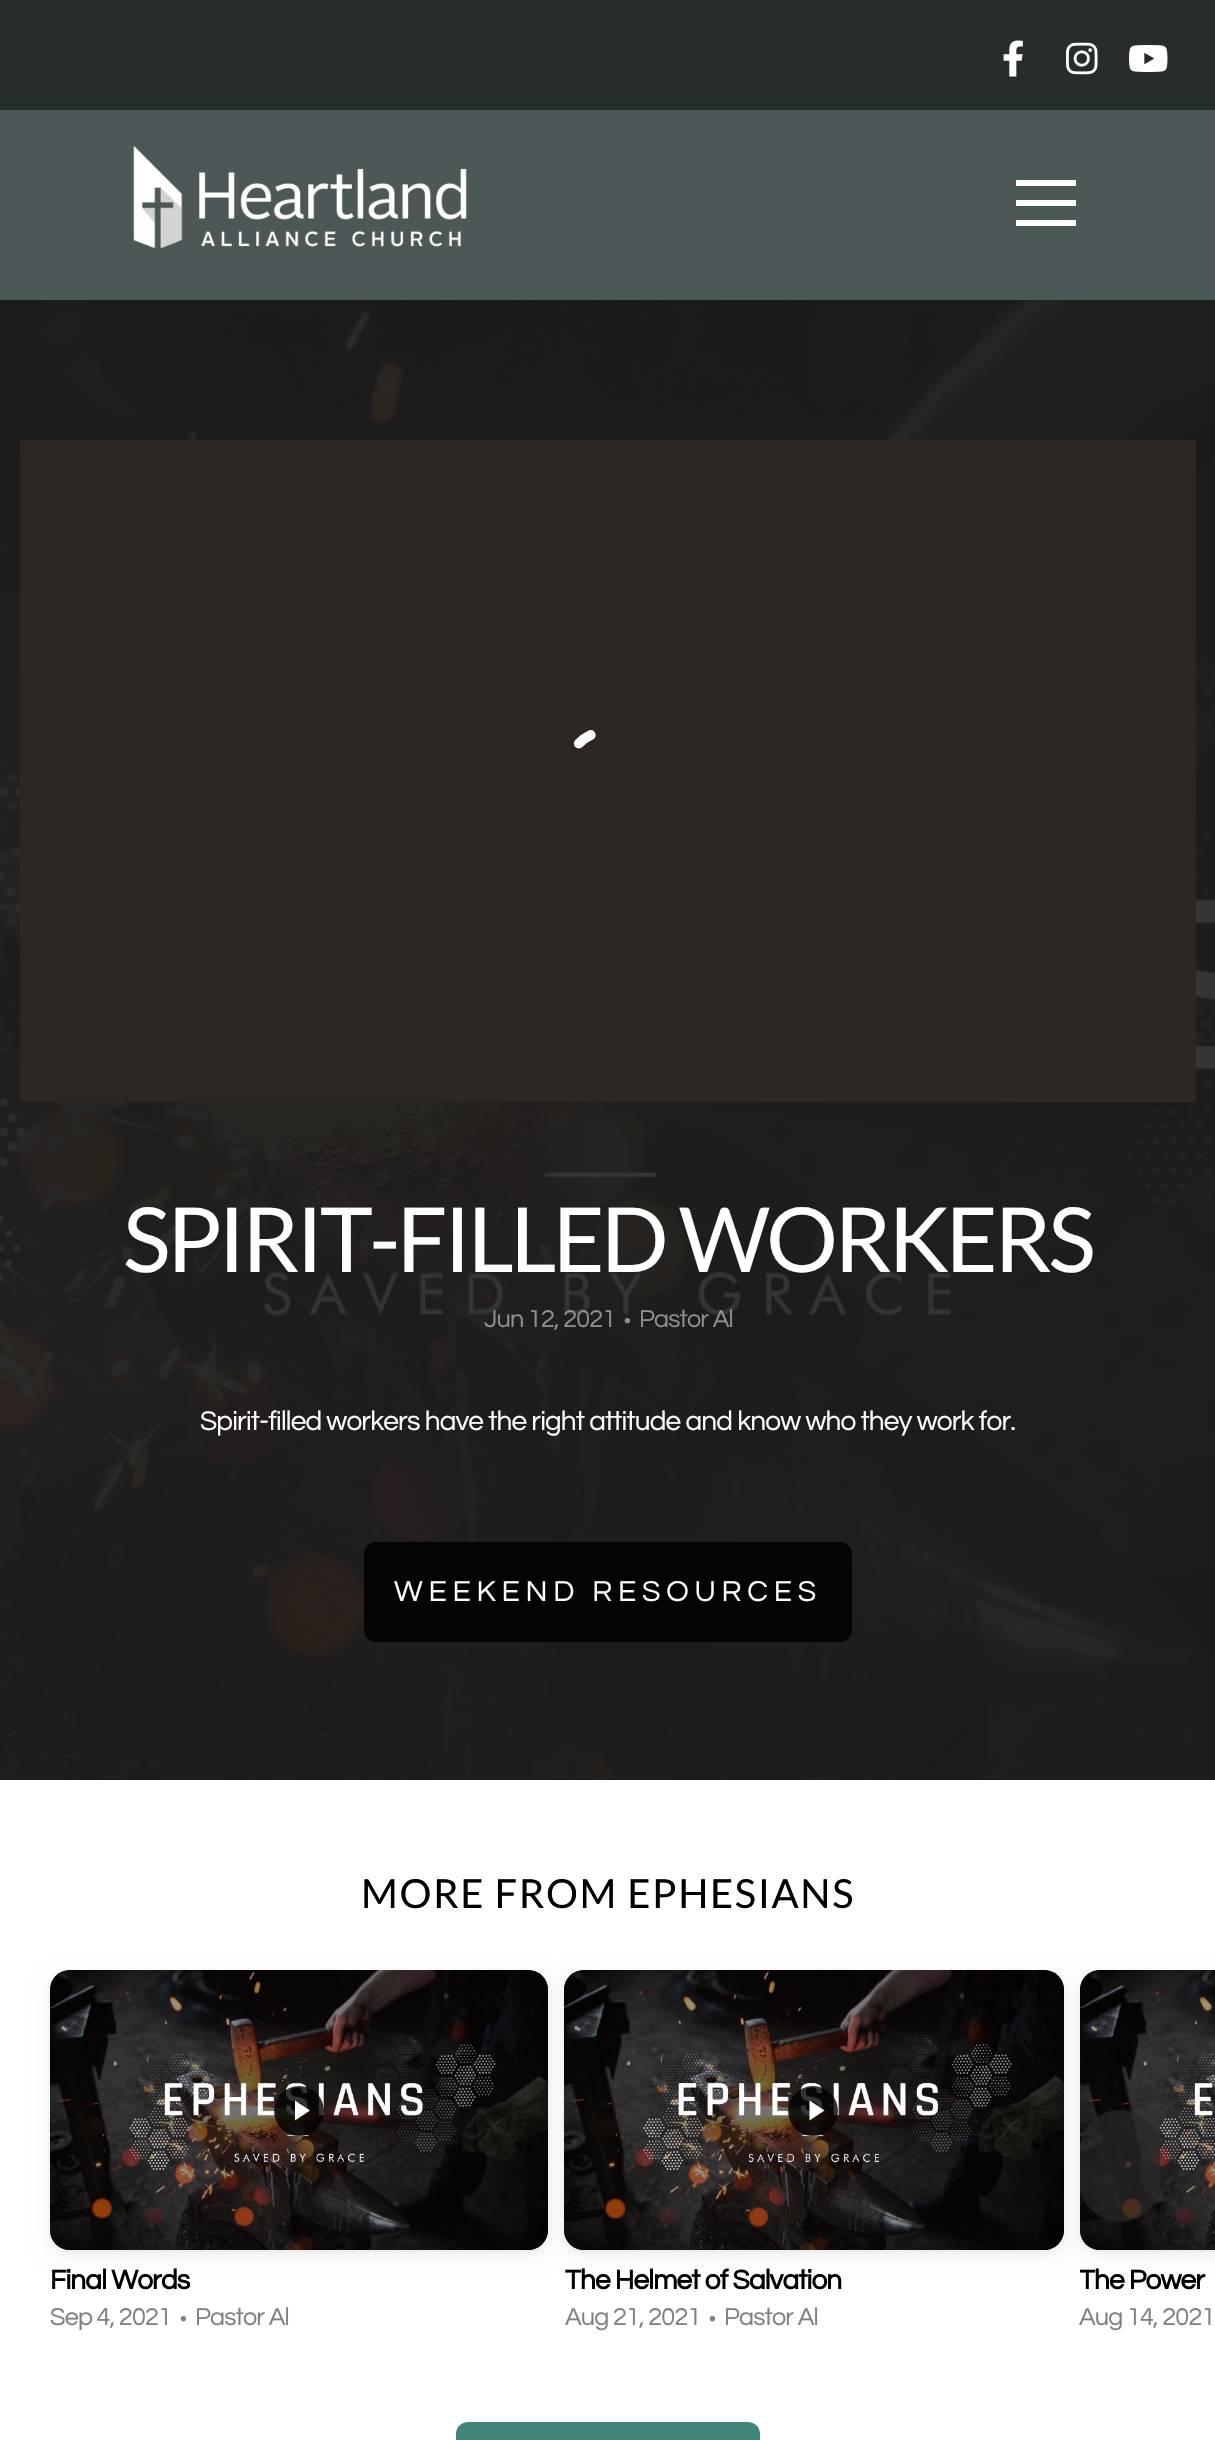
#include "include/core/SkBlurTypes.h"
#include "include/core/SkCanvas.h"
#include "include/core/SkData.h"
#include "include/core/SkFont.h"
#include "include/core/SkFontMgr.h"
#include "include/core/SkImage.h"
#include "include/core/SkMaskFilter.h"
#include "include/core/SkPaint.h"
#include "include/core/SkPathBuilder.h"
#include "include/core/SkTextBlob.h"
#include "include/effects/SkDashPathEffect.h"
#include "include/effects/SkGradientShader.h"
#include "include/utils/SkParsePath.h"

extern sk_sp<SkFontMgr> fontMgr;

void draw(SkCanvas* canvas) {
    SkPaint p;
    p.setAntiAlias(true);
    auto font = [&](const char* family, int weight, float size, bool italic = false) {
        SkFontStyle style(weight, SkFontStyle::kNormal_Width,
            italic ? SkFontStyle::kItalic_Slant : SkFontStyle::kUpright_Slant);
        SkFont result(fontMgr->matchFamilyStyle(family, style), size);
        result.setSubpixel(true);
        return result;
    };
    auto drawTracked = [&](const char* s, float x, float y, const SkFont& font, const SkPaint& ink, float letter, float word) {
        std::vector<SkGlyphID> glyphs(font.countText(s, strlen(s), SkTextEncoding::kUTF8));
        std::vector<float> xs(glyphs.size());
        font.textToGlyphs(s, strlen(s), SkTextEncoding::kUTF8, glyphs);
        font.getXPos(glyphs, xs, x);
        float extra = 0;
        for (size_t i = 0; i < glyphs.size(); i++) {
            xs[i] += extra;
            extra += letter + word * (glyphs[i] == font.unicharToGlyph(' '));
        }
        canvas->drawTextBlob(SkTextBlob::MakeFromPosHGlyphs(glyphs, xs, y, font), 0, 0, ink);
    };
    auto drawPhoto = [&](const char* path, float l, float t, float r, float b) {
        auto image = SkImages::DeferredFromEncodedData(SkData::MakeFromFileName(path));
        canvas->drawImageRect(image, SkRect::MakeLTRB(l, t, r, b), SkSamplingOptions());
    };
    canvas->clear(0xFF4C5758);
    p.setColor(0xFF272C2D);
    canvas->drawRect(SkRect::MakeLTRB(0, 0, 1215, 110), p);
    drawPhoto("media/1.png", 1003, 40, 1023, 77);
    drawPhoto("media/2.png", 1066, 42, 1098, 75);
    drawPhoto("media/3.png", 1129, 45, 1168, 72);
    drawPhoto("media/4.png", 133, 145, 467, 249);
    {
        const struct { float l, t, r, b; SkColor color; } items[] = {
            {1016, 180, 1076, 186, 0xFFFFFFFF},
            {1016, 200, 1076, 206, 0xFFFFFFFF},
            {1016, 220, 1076, 226, 0xFFFFFFFF},
        };
        for (auto [l, t, r, b, color] : items) {
            p.setColor(color);
            canvas->drawRect(SkRect::MakeLTRB(l, t, r, b), p);
        }
    }
    drawPhoto("media/5.png", 0, 300, 1215, 1780);
    drawPhoto("media/6.png", 20, 440, 1196, 1102);
    auto font1 = font("Lato", 400, 89.6f);
    drawTracked("SPIRIT-FILLED WORKERS", 123, 1272, font1, p, -3.6f, 0);
    auto font2 = font("Questrial", 400, 25.25f);
    p.setColor(0xFF908F8F);
    drawTracked("Jun 12, 2021", 484, 1327, font2, p, -0.85f, 0);
    auto font3 = font("Questrial", 400, 20);
    drawTracked("•", 624, 1327, font3, p, -0.85f, 0);
    drawTracked("Pastor Al", 639, 1327, font2, p, -0.85f, 0);
    auto font4 = font("Questrial", 400, 28);
    p.setColor(0xFFFFFFFF);
    drawTracked("Spirit-filled workers have the right attitude and know who they work for.", 200, 1430, font4, p, -0.85f, 0);
    p.setColor(0xE3000000);
    canvas->drawRoundRect(SkRect::MakeLTRB(364, 1542, 852, 1642), 12, 12, p);
    auto font5 = font("Questrial", 400, 30);
    p.setColor(0xFFFFFFFF);
    drawTracked("WEEKEND RESOURCES", 394, 1601, font5, p, 5.75f, 0);
    canvas->drawRect(SkRect::MakeLTRB(0, 1780, 1215, 2440), p);
    auto font6 = font("Lato", 400, 40);
    p.setColor(0xFF000000);
    drawTracked("MORE FROM EPHESIANS", 361, 1908, font6, p, 1.6f, 0);
    p.setColor(0x0A000000);
    p.setMaskFilter(SkMaskFilter::MakeBlur(kNormal_SkBlurStyle, 2));
    canvas->drawRoundRect(SkRect::MakeLTRB(50, 1972, 548, 2252), 20, 20, p);
    p.setMaskFilter(nullptr);
    p.setColor(0x0F000000);
    p.setMaskFilter(SkMaskFilter::MakeBlur(kNormal_SkBlurStyle, 10));
    canvas->drawRoundRect(SkRect::MakeLTRB(50, 1976, 548, 2256), 20, 20, p);
    p.setMaskFilter(nullptr);
    p.setColor(0xFF2C2722);
    canvas->drawRoundRect(SkRect::MakeLTRB(50, 1970, 548, 2250), 20, 20, p);
    drawPhoto("media/7.png", 50, 1970, 548, 2250);
    p.setColor(0x0F000000);
    p.setMaskFilter(SkMaskFilter::MakeBlur(kNormal_SkBlurStyle, 10));
    canvas->drawRoundRect(SkRect::MakeLTRB(564, 1976, 1064, 2256), 20, 20, p);
    p.setMaskFilter(nullptr);
    p.setColor(0x0A000000);
    p.setMaskFilter(SkMaskFilter::MakeBlur(kNormal_SkBlurStyle, 2));
    canvas->drawRoundRect(SkRect::MakeLTRB(1080, 1972, 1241, 2252), 20, 20, p);
    p.setMaskFilter(nullptr);
    p.setMaskFilter(SkMaskFilter::MakeBlur(kNormal_SkBlurStyle, 2));
    canvas->drawRoundRect(SkRect::MakeLTRB(564, 1972, 1064, 2252), 20, 20, p);
    p.setMaskFilter(nullptr);
    p.setColor(0xFF2C2722);
    canvas->drawRoundRect(SkRect::MakeLTRB(564, 1970, 1064, 2250), 20, 20, p);
    drawPhoto("media/8.png", 564, 1970, 1064, 2250);
    p.setColor(0x0F000000);
    p.setMaskFilter(SkMaskFilter::MakeBlur(kNormal_SkBlurStyle, 10));
    canvas->drawRoundRect(SkRect::MakeLTRB(1080, 1976, 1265, 2256), 20, 20, p);
    p.setMaskFilter(nullptr);
    p.setColor(0xFF2C2722);
    canvas->drawPath(SkPathBuilder().moveTo(1100, 1970).lineTo(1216, 1970).lineTo(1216, 2250).lineTo(1100, 2250).cubicTo(1089, 2250, 1080, 2241, 1080, 2230).lineTo(1080, 1990).cubicTo(1080, 1979, 1089, 1970, 1100, 1970).close().detach(), p);
    drawPhoto("media/9.png", 1080, 1970, 1215, 2250);
    p.setColor(0xB3282828);
    canvas->drawRoundRect(SkRect::MakeLTRB(1080, 2110, 1160, 2222), 40, 40, p);
    p.setColor(0xCC000000);
    canvas->drawCircle(299, 2111, 25, p);
    p.setColor(0xFFFFFFFF);
    canvas->drawPath(SkPathBuilder().moveTo(295, 2120.5f).lineTo(295, 2100.5f).lineTo(310, 2110.5f).close().detach(), p);
    auto font7 = font("Questrial", 700, 28);
    p.setColor(0xFF000000);
    drawTracked("Final Words", 50, 2289, font7, p, -0.85f, 0);
    p.setColor(0xFF808080);
    drawTracked("Sep 4, 2021", 50, 2325, font2, p, -0.85f, 0);
    drawTracked("•", 180, 2325, font3, p, -0.85f, 0);
    drawTracked("Pastor Al", 195, 2325, font2, p, -0.85f, 0);
    p.setColor(0xCC000000);
    canvas->drawCircle(813, 2111, 25, p);
    p.setColor(0xFFFFFFFF);
    canvas->drawPath(SkPathBuilder().moveTo(809.5f, 2120.5f).lineTo(809.5f, 2100.5f).lineTo(824.5f, 2110.5f).close().detach(), p);
    p.setColor(0xFF000000);
    drawTracked("The Helmet of Salvation", 565, 2289, font7, p, -0.85f, 0);
    p.setColor(0xFF808080);
    drawTracked("Aug 21, 2021", 565, 2325, font2, p, -0.85f, 0);
    drawTracked("•", 709, 2325, font3, p, -0.85f, 0);
    drawTracked("Pastor Al", 724, 2325, font2, p, -0.85f, 0);
    canvas->save();
    canvas->clipRect(SkRect::MakeLTRB(1080, 2260, 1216, 2302));
    p.setColor(0xFF000000);
    drawTracked("The Power", 1079, 2289, font7, p, -0.85f, 0);
    canvas->restore();
    p.setColor(0xFF808080);
    drawTracked("Aug 14, 2021", 1079, 2325, font2, p, -0.85f, 0);
    p.setColor(0xFF428578);
    canvas->drawRoundRect(SkRect::MakeLTRB(456, 2422, 760, 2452), 12, 12, p);
}
